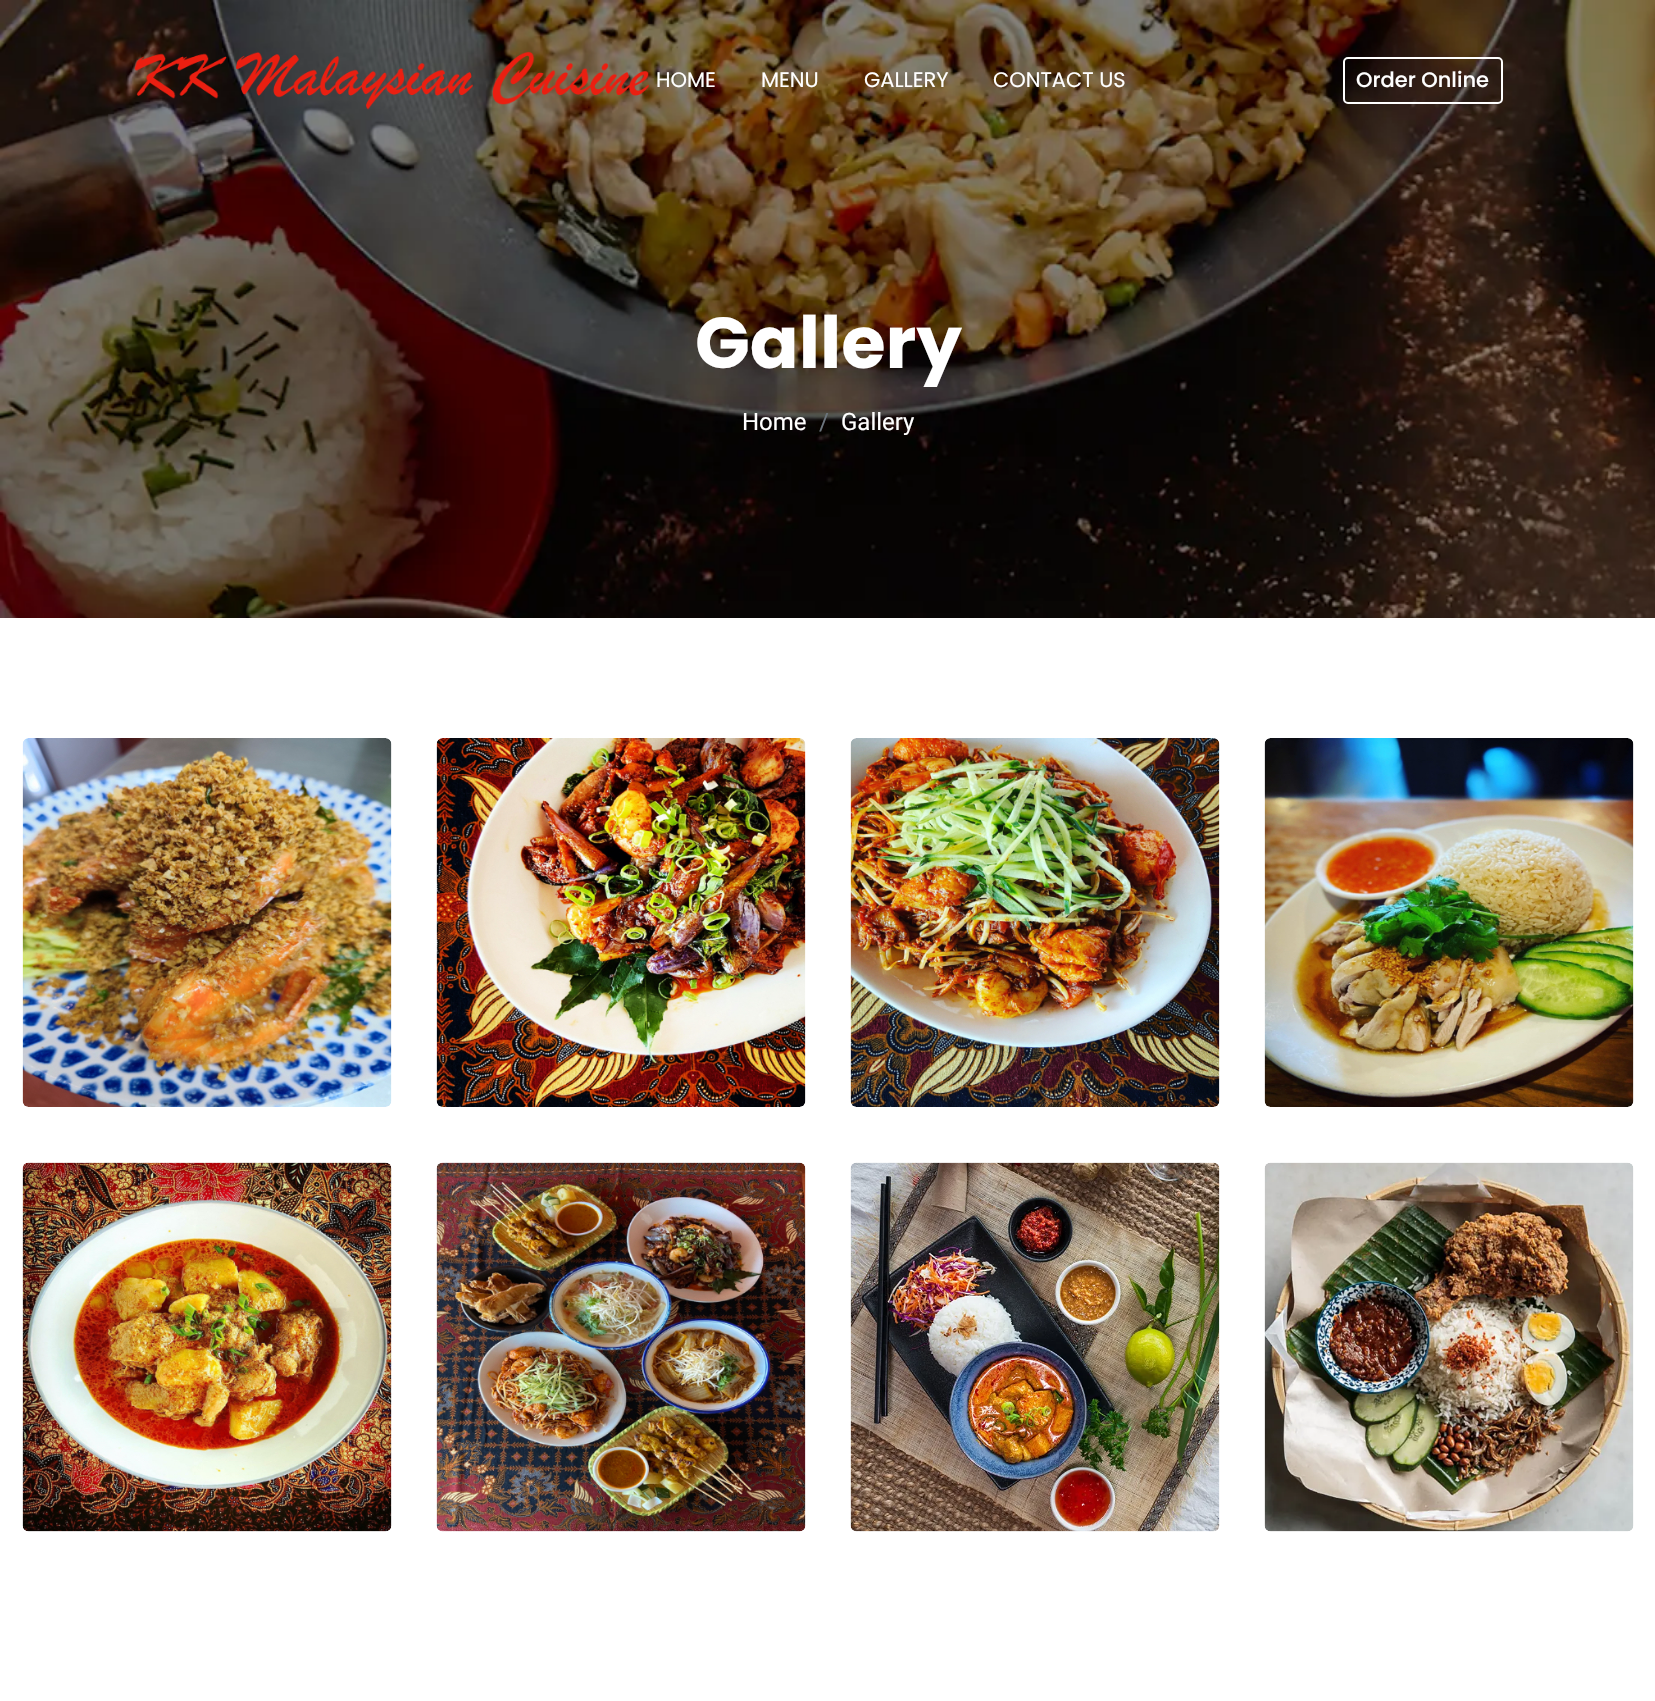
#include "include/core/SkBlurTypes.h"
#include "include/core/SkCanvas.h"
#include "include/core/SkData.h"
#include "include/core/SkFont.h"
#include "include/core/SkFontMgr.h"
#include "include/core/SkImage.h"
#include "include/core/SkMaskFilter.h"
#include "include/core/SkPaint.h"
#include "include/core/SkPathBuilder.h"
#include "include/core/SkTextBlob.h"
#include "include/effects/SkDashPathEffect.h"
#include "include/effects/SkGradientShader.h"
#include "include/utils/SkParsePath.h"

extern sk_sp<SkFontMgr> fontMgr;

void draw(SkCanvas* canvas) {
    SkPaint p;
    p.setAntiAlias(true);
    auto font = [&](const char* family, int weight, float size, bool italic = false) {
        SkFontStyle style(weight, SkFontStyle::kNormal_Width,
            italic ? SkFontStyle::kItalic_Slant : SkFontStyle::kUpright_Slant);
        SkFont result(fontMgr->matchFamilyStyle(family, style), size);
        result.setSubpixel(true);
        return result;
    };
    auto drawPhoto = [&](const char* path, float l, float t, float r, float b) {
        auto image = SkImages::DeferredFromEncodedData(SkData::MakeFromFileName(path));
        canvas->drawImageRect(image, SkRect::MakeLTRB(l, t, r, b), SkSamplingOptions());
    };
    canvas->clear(0xFFFFFFFF);
    drawPhoto("media/2.png", 0, 0, 1655, 618);
    drawPhoto("media/1.png", 134, 51, 649, 110);
    auto font1 = font("Poppins", 400, 21);
    p.setColor(0xFFFFFFFF);
    {
        const struct { const char* s; float x, y; } items[] = {
            {"HOME", 656, 87},
            {"MENU", 761, 87},
            {"GALLERY", 864, 87},
            {"CONTACT US", 993, 87},
        };
        for (auto [s, x, y] : items) {
            canvas->drawString(s, x, y, font1, p);
        }
    }
    p.setStyle(SkPaint::kStroke_Style);
    p.setStrokeWidth(2);
    canvas->drawRoundRect(SkRect::MakeLTRB(1344, 58, 1502, 103), 4, 4, p);
    auto font2 = font("Poppins", 500, 21);
    p.setStyle(SkPaint::kFill_Style);
    canvas->drawString("Order Online", 1356, 87, font2, p);
    auto font3 = font("Poppins", 700, 72);
    canvas->drawString("Gallery", 695, 368, font3, p);
    auto font4 = font("Roboto", 400, 24);
    canvas->drawString("Home", 742, 430, font4, p);
    p.setColor(0xFF6C757D);
    canvas->drawString("/", 819, 430, font4, p);
    p.setColor(0xFFFFFFFF);
    canvas->drawString("Gallery", 841, 430, font4, p);
    drawPhoto("media/3.png", 22, 738, 392, 1107);
    drawPhoto("media/4.png", 436, 738, 806, 1107);
    drawPhoto("media/5.png", 850, 738, 1220, 1107);
    drawPhoto("media/6.png", 1264, 738, 1634, 1107);
    drawPhoto("media/7.png", 22, 1162, 392, 1532);
    drawPhoto("media/8.png", 436, 1162, 806, 1532);
    drawPhoto("media/9.png", 850, 1162, 1220, 1532);
    drawPhoto("media/10.png", 1264, 1162, 1634, 1532);
}
